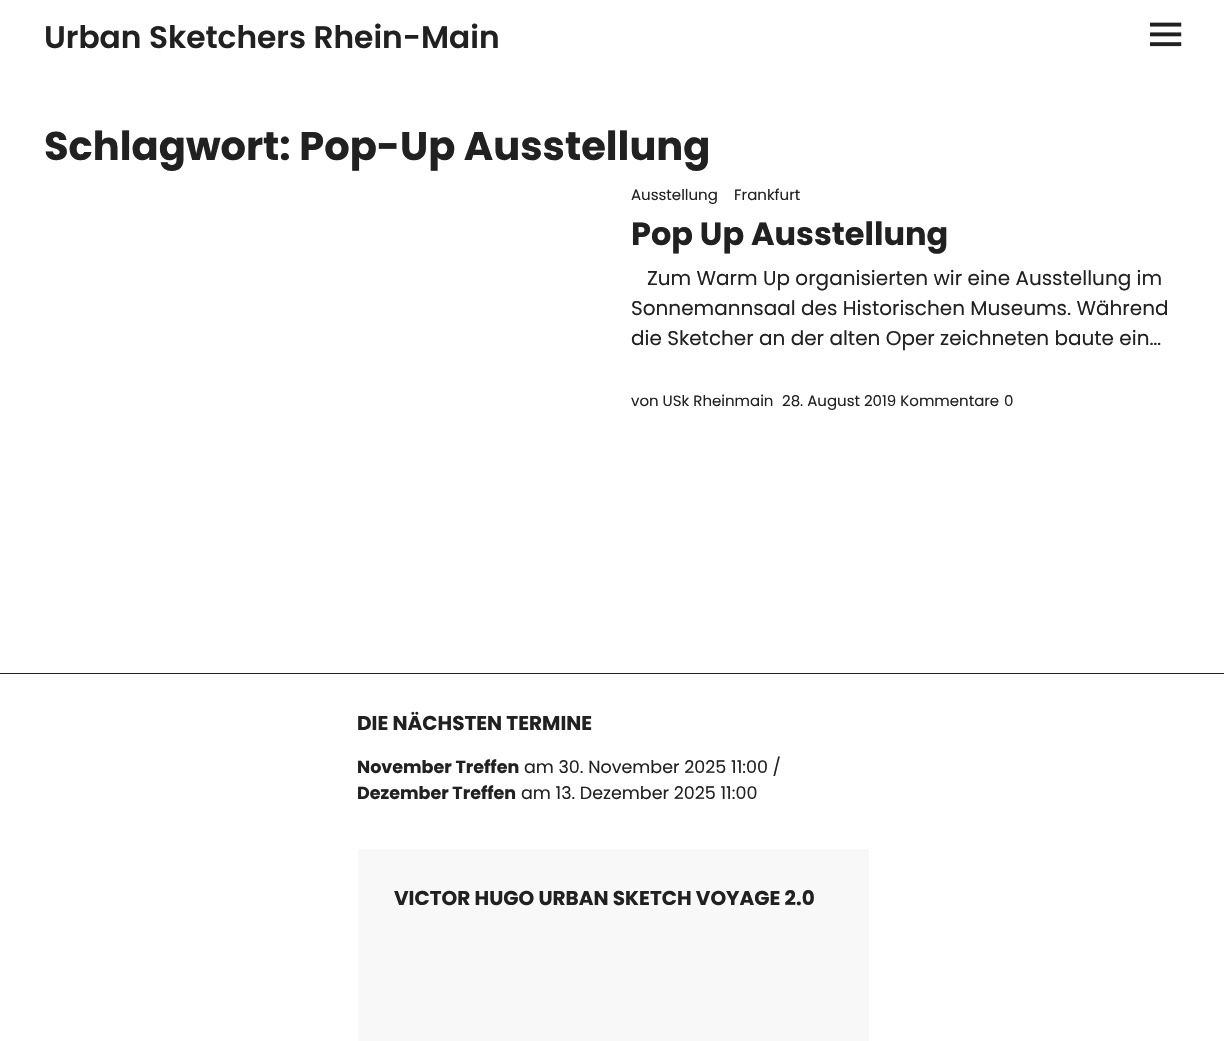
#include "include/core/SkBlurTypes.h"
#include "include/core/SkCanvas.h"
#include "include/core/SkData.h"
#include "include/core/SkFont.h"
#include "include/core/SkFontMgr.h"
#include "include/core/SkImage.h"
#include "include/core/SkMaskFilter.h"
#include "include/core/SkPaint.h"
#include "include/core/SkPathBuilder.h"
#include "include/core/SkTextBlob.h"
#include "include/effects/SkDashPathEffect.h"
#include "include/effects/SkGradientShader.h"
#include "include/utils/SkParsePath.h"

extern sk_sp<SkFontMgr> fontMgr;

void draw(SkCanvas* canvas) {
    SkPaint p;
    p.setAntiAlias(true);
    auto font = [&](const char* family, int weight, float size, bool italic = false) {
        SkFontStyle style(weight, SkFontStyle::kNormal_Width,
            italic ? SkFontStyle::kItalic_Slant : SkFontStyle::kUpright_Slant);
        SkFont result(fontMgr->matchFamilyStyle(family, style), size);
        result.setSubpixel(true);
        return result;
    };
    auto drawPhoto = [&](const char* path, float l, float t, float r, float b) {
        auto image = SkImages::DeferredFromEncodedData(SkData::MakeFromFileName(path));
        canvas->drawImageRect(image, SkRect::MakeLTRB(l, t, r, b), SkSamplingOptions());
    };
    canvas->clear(0xFFFFFFFF);
    auto font1 = font("Poppins", 600, 31.25f);
    p.setColor(0xFF212121);
    canvas->drawString("Urban Sketchers Rhein-Main", 44, 48, font1, p);
    drawPhoto("media/1.png", 1150, 22, 1182, 47);
    canvas->drawRect(SkRect::MakeLTRB(0, 673, 1224, 674), p);
    auto font2 = font("Poppins", 700, 40);
    canvas->drawString("Schlagwort: Pop-Up Ausstellung", 44, 160, font2, p);
    auto font3 = font("Poppins", 400, 15);
    canvas->drawString("Ausstellung", 631, 200, font3, p);
    canvas->drawString("Frankfurt", 734, 200, font3, p);
    auto font4 = font("Poppins", 700, 32);
    canvas->drawString("Pop Up Ausstellung", 631, 245, font4, p);
    auto font5 = font("Poppins", 400, 20);
    {
        const struct { const char* s; float x, y; } items[] = {
            {"Zum Warm Up organisierten wir eine Ausstellung im", 647, 285},
            {"Sonnemannsaal des Historischen Museums. Während", 631, 315},
            {"die Sketcher an der alten Oper zeichneten baute ein…", 631, 345},
        };
        for (auto [s, x, y] : items) {
            canvas->drawString(s, x, y, font5, p);
        }
    }
    {
        const struct { const char* s; float x, y; } items[] = {
            {"von USk Rheinmain", 631, 406},
            {"28. August 2019 Kommentare", 782, 406},
            {"0", 1004, 406},
        };
        for (auto [s, x, y] : items) {
            canvas->drawString(s, x, y, font3, p);
        }
    }
    auto font6 = font("Poppins", 700, 20);
    canvas->drawString("DIE NÄCHSTEN TERMINE", 357, 730, font6, p);
    auto font7 = font("Poppins", 700, 17.5f);
    canvas->drawString("November Treffen", 357, 773, font7, p);
    auto font8 = font("Poppins", 400, 17.5f);
    canvas->drawString("am 30. November 2025 11:00 /", 524, 773, font8, p);
    canvas->drawString("Dezember Treffen", 357, 799, font7, p);
    canvas->drawString("am 13. Dezember 2025 11:00", 521, 799, font8, p);
    p.setColor(0xFFF8F8F8);
    canvas->drawRect(SkRect::MakeLTRB(358, 849, 869, 1041), p);
    p.setColor(0xFF212121);
    canvas->drawString("VICTOR HUGO URBAN SKETCH VOYAGE 2.0", 394, 905, font6, p);
}
